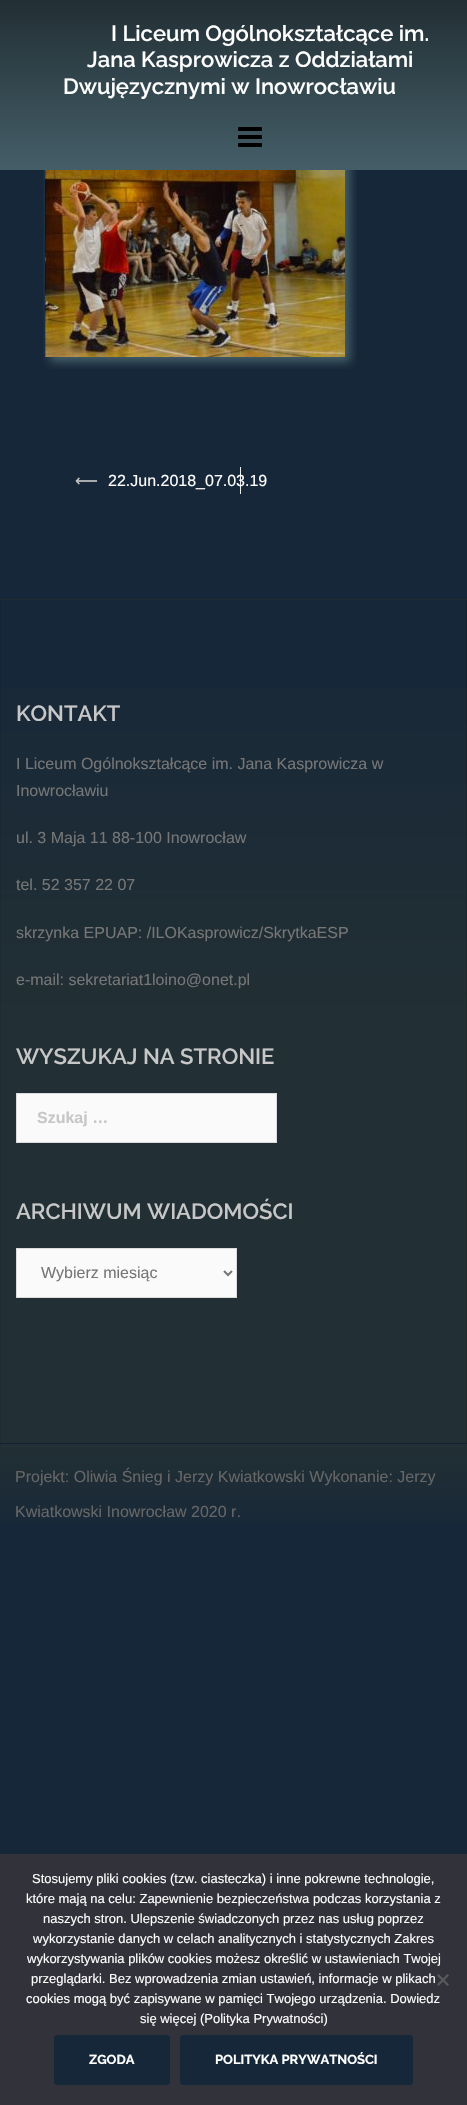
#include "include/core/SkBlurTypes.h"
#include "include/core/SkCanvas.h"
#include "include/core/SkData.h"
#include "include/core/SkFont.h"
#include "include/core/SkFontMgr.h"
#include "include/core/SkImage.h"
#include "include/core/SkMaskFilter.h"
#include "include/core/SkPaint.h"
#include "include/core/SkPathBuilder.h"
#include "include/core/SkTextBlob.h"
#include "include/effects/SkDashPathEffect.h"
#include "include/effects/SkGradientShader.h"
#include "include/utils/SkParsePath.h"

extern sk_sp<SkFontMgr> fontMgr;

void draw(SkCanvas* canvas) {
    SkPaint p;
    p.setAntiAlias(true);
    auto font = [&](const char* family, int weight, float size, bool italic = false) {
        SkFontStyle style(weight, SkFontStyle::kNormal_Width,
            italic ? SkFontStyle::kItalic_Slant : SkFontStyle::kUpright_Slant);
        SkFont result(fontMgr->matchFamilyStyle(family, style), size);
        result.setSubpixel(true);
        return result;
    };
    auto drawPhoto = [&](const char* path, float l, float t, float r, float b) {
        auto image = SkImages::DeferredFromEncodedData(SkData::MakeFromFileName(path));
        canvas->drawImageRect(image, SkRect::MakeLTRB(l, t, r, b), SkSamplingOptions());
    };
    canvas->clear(0xFF162739);
    {
        const SkColor colors[] = {0xFF222F34, 0xFF445E68};
        const float stops[] = {0, 1};
        const SkPoint ends[] = {{234, 0}, {234, 170}};
        p.setShader(SkGradientShader::MakeLinear(ends, colors, stops, 2, SkTileMode::kClamp));
        p.setAlpha(255);
    }
    canvas->drawRect(SkRect::MakeLTRB(0, 0, 467, 170), p);
    auto font1 = font("Raleway", 600, 22);
    p.setShader(nullptr);
    p.setColor(0xFFFFFFFF);
    {
        const struct { const char* s; float x, y; } items[] = {
            {"I Liceum Ogólnokształcące im.", 111, 41},
            {"Jana Kasprowicza z Oddziałami", 87, 67},
            {"Dwujęzycznymi w Inowrocławiu", 63, 94},
        };
        for (auto [s, x, y] : items) {
            canvas->drawString(s, x, y, font1, p);
        }
    }
    drawPhoto("media/1.png", 238, 127, 262, 147);
    drawPhoto("media/2.png", 43, 170, 357, 369);
    p.setColor(0xFFEBEBEB);
    canvas->drawRect(SkRect::MakeLTRB(240, 467, 241, 494), p);
    auto font2 = font("DejaVu Sans", 400, 16);
    p.setColor(0xFFC7C7C7);
    canvas->drawString("⟵", 75, 486, font2, p);
    auto font3 = font("Liberation Sans", 400, 16);
    p.setColor(0xFFFFFFFF);
    canvas->drawString("22.Jun.2018_07.03.19", 108, 486, font3, p);
    {
        const SkColor colors[] = {0xFF162739, 0xFF222F34, 0xFF222F34};
        const float stops[] = {0, 0.5f, 1};
        const SkPoint ends[] = {{233, -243}, {234, 600}};
        p.setShader(SkGradientShader::MakeLinear(ends, colors, stops, 3, SkTileMode::kClamp));
        p.setAlpha(255);
    }
    canvas->drawRect(SkRect::MakeLTRB(0, 599, 467, 600), p);
    {
        const SkColor colors[] = {0xFF162739, 0xFF222F34, 0xFF222F34};
        const float stops[] = {0, 0.5f, 1};
        const SkPoint ends[] = {{233, 600}, {234, 1443}};
        p.setShader(SkGradientShader::MakeLinear(ends, colors, stops, 3, SkTileMode::kClamp));
        p.setAlpha(255);
    }
    canvas->drawRect(SkRect::MakeLTRB(0, 688, 467, 1443), p);
    p.setStyle(SkPaint::kStroke_Style);
    p.setStrokeWidth(1);
    p.setShader(nullptr);
    p.setColor(0x1A000000);
    canvas->drawRect(SkRect::MakeLTRB(0.5f, 599.5f, 466.5f, 1443.5f), p);
    p.setStyle(SkPaint::kFill_Style);
    p.setColor(0xFFC7C7C7);
    canvas->drawString("KONTAKT", 16, 721, font1, p);
    p.setColor(0xFF767676);
    {
        const struct { const char* s; float x, y; } items[] = {
            {"I Liceum Ogólnokształcące im. Jana Kasprowicza w", 16, 769},
            {"Inowrocławiu", 16, 796},
            {"ul. 3 Maja 11 88-100 Inowrocław", 16, 843},
            {"tel. 52 357 22 07", 16, 890},
            {"skrzynka EPUAP: /ILOKasprowicz/SkrytkaESP", 16, 938},
            {"e-mail: sekretariat1loino@onet.pl", 16, 985},
        };
        for (auto [s, x, y] : items) {
            canvas->drawString(s, x, y, font3, p);
        }
    }
    p.setColor(0xFFC7C7C7);
    canvas->drawString("WYSZUKAJ NA STRONIE", 16, 1064, font1, p);
    p.setColor(0xFFFAFAFA);
    canvas->drawRect(SkRect::MakeLTRB(16.5f, 1093.5f, 276.5f, 1142.5f), p);
    p.setStyle(SkPaint::kStroke_Style);
    p.setColor(0xFFDBDBDB);
    canvas->drawRect(SkRect::MakeLTRB(16.5f, 1093.5f, 276.5f, 1142.5f), p);
    auto font4 = font("Liberation Sans", 700, 16);
    p.setStyle(SkPaint::kFill_Style);
    p.setColor(0xFFC7C7C7);
    canvas->drawString("Szukaj …", 37, 1123, font4, p);
    canvas->drawString("ARCHIWUM WIADOMOŚCI", 16, 1219, font1, p);
    p.setColor(0xFFFAFAFA);
    canvas->drawRect(SkRect::MakeLTRB(16.5f, 1248.5f, 236.5f, 1297.5f), p);
    p.setStyle(SkPaint::kStroke_Style);
    p.setColor(0xFFDBDBDB);
    canvas->drawRect(SkRect::MakeLTRB(16.5f, 1248.5f, 236.5f, 1297.5f), p);
    p.setStrokeWidth(2);
    p.setColor(0xFF767676);
    canvas->drawPath(SkPathBuilder().moveTo(224, 1271).lineTo(228, 1275).lineTo(232, 1271).detach(), p);
    p.setStyle(SkPaint::kFill_Style);
    canvas->drawString("Wybierz miesiąc", 41, 1278, font3, p);
    {
        const SkColor colors[] = {0xFF222F34, 0xFF162739};
        const float stops[] = {0, 1};
        const SkPoint ends[] = {{234, 1444}, {234, 1544}};
        p.setShader(SkGradientShader::MakeLinear(ends, colors, stops, 2, SkTileMode::kClamp));
        p.setAlpha(255);
    }
    canvas->drawRect(SkRect::MakeLTRB(0, 1444, 467, 1523), p);
    p.setShader(nullptr);
    p.setColor(0xFF666666);
    canvas->drawString("Projekt: Oliwia Śnieg i Jerzy Kwiatkowski Wykonanie: Jerzy", 15, 1482, font3, p);
    canvas->drawString("Kwiatkowski Inowrocław 2020 r.", 15, 1517, font3, p);
    p.setColor(0xFF32323A);
    canvas->drawRect(SkRect::MakeLTRB(0, 1854, 467, 2105), p);
    auto font5 = font("Liberation Sans", 400, 13);
    p.setColor(0xFFFFFFFF);
    {
        const struct { const char* s; float x, y; } items[] = {
            {"Stosujemy pliki cookies (tzw. ciasteczka) i inne pokrewne technologie,", 32, 1883},
            {"które mają na celu: Zapewnienie bezpieczeństwa podczas korzystania z", 26, 1903},
            {"naszych stron. Ulepszenie świadczonych przez nas usług poprzez", 43, 1923},
            {"wykorzystanie danych w celach analitycznych i statystycznych Zakres", 33, 1943},
            {"wykorzystywania plików cookies możesz określić w ustawieniach Twojej", 27, 1963},
            {"przeglądarki. Bez wprowadzenia zmian ustawień, informacje w plikach", 31, 1983},
            {"cookies mogą być zapisywane w pamięci Twojego urządzenia. Dowiedz", 26, 2003},
            {"się więcej (Polityka Prywatności)", 140, 2023},
        };
        for (auto [s, x, y] : items) {
            canvas->drawString(s, x, y, font5, p);
        }
    }
    p.setColor(0xFF59595D);
    canvas->drawPath(SkPathBuilder().moveTo(447.5f, 1974).lineTo(449, 1975.5f).lineTo(438.5f, 1986).lineTo(437, 1984.5f).close().detach(), p);
    canvas->drawPath(SkPathBuilder().moveTo(437, 1975.5f).lineTo(438.5f, 1974).lineTo(449, 1984.5f).lineTo(447.5f, 1986).close().detach(), p);
    p.setColor(0xFF162739);
    canvas->drawRoundRect(SkRect::MakeLTRB(54.5f, 2035.5f, 169.5f, 2084.5f), 2.5f, 2.5f, p);
    p.setStyle(SkPaint::kStroke_Style);
    p.setStrokeWidth(1);
    canvas->drawRoundRect(SkRect::MakeLTRB(54.5f, 2035.5f, 169.5f, 2084.5f), 2.5f, 2.5f, p);
    auto font6 = font("Raleway", 700, 13);
    p.setStyle(SkPaint::kFill_Style);
    p.setColor(0xFFFFFFFF);
    canvas->drawString("ZGODA", 89, 2064, font6, p);
    p.setColor(0xFF162739);
    canvas->drawRoundRect(SkRect::MakeLTRB(180.5f, 2035.5f, 412.5f, 2084.5f), 2.5f, 2.5f, p);
    p.setStyle(SkPaint::kStroke_Style);
    canvas->drawRoundRect(SkRect::MakeLTRB(180.5f, 2035.5f, 412.5f, 2084.5f), 2.5f, 2.5f, p);
    p.setStyle(SkPaint::kFill_Style);
    p.setColor(0xFFFFFFFF);
    canvas->drawString("POLITYKA PRYWATNOŚCI", 215, 2064, font6, p);
}
